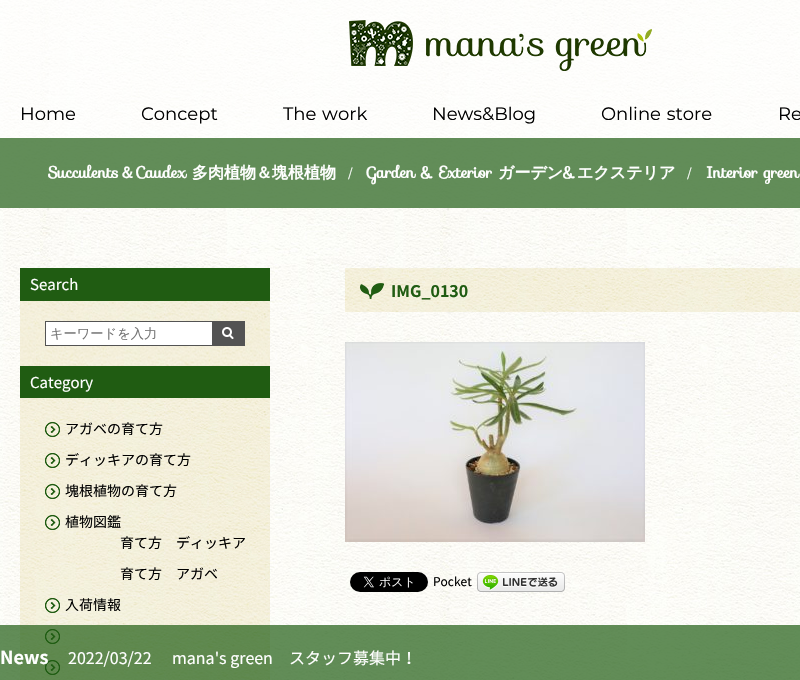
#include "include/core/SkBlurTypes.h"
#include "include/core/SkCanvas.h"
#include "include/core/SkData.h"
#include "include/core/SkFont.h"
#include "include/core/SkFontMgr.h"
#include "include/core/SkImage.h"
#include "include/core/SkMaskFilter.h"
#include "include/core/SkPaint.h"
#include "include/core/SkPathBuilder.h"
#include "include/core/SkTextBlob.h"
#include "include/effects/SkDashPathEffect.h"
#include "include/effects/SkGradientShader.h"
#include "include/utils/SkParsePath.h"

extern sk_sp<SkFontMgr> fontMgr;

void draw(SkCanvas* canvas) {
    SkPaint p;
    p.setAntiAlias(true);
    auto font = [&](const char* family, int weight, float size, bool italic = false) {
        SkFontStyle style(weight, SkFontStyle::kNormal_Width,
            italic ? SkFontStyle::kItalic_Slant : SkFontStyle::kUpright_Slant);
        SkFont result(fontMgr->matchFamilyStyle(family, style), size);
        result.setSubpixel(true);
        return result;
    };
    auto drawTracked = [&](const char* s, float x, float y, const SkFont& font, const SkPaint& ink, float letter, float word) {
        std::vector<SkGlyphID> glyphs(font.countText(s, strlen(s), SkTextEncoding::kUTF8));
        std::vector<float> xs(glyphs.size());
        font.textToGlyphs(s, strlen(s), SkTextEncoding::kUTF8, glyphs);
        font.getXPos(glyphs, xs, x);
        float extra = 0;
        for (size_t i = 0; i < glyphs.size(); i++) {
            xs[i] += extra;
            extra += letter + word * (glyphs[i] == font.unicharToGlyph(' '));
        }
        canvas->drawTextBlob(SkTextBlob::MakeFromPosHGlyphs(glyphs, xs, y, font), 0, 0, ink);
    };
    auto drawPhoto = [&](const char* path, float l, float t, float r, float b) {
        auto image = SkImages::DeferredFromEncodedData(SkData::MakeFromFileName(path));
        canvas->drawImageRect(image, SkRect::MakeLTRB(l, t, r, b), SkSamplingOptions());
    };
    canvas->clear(0xFFFFFFFF);
    drawPhoto("media/1.png", 0, 0, 800, 680);
    p.setColor(0x99FFFFFF);
    canvas->drawRect(SkRect::MakeLTRB(0, 0, 800, 208), p);
    drawPhoto("media/2.png", 349, 20, 652, 71);
    auto font1 = font("Montserrat", 100, 18);
    p.setColor(0xFF000000);
    canvas->drawString("Home", 20, 120, font1, p);
    canvas->drawString("Concept", 141, 120, font1, p);
    drawTracked("The work", 283, 120, font1, p, 0, 1);
    canvas->drawString("News&Blog", 432, 120, font1, p);
    drawTracked("Online store", 601, 120, font1, p, 0, 1);
    canvas->drawString("Re", 778, 120, font1, p);
    p.setColor(0xB31F5D13);
    canvas->drawRect(SkRect::MakeLTRB(0, 138, 800, 208), p);
    auto font2 = font("Sofia", 700, 16);
    p.setColor(0xFFFFFFFF);
    canvas->drawString("Succulents", 48, 178, font2, p);
    auto font3 = font("WenQuanYi Zen Hei", 700, 16);
    canvas->drawString("＆", 119, 178, font3, p);
    canvas->drawString("Caudex", 135, 178, font2, p);
    canvas->drawString("多肉植物＆塊根植物", 192, 178, font3, p);
    auto font4 = font("Noto Sans JP", 400, 12);
    canvas->drawString("/", 348, 177, font4, p);
    canvas->drawString("Garden & Exterior", 367, 178, font2, p);
    canvas->drawString("ガーデン", 498, 178, font3, p);
    canvas->drawString("&", 563, 178, font2, p);
    canvas->drawString("エクステリア", 577, 178, font3, p);
    canvas->drawString("/", 687, 177, font4, p);
    canvas->drawString("Interior green", 706, 178, font2, p);
    drawPhoto("media/3.png", 20, 301, 270, 366);
    p.setColor(0xFF205C12);
    canvas->drawRect(SkRect::MakeLTRB(20, 268, 270, 301), p);
    auto font5 = font("Noto Sans JP", 400, 15);
    p.setColor(0xFFFFFFFF);
    canvas->drawString("Search", 30, 290, font5, p);
    canvas->drawRect(SkRect::MakeLTRB(46, 322, 212, 345), p);
    p.setStyle(SkPaint::kStroke_Style);
    p.setStrokeWidth(1);
    p.setColor(0xFF535353);
    canvas->drawRect(SkRect::MakeLTRB(45.5f, 321.5f, 244.5f, 345.5f), p);
    auto font6 = font("WenQuanYi Zen Hei", 500, 13.25f);
    p.setStyle(SkPaint::kFill_Style);
    p.setColor(0xFF757575);
    canvas->drawString("キーワードを入力", 50, 338, font6, p);
    drawPhoto("media/4.png", 212, 322, 244, 345);
    drawPhoto("media/5.png", 20, 398, 270, 680);
    p.setColor(0xFF205C12);
    canvas->drawRect(SkRect::MakeLTRB(20, 366, 270, 398), p);
    p.setColor(0xFFFFFFFF);
    canvas->drawString("Category", 30, 388, font5, p);
    drawPhoto("media/6.png", 45, 422, 60, 437);
    auto font7 = font("Noto Sans JP", 400, 14);
    p.setColor(0xFF000000);
    canvas->drawString("アガベの育て方", 65, 434, font7, p);
    drawPhoto("media/7.png", 45, 453, 60, 468);
    canvas->drawString("ディッキアの育て方", 65, 465, font7, p);
    drawPhoto("media/8.png", 45, 484, 60, 499);
    canvas->drawString("塊根植物の育て方", 65, 496, font7, p);
    drawPhoto("media/9.png", 45, 515, 60, 530);
    {
        const struct { const char* s; float x, y; } items[] = {
            {"植物図鑑", 65, 527},
            {"育て方　ディッキア", 120, 548},
            {"育て方　アガベ", 120, 579},
        };
        for (auto [s, x, y] : items) {
            canvas->drawString(s, x, y, font7, p);
        }
    }
    drawPhoto("media/10.png", 45, 598, 60, 613);
    canvas->drawString("入荷情報", 65, 610, font7, p);
    drawPhoto("media/11.png", 45, 629, 60, 644);
    drawPhoto("media/12.png", 45, 660, 60, 675);
    drawPhoto("media/13.png", 345, 268, 800, 312);
    drawPhoto("media/14.png", 360, 283, 384, 299);
    auto font8 = font("Noto Sans JP", 700, 16);
    p.setColor(0xFF205C12);
    canvas->drawString("IMG_0130", 391, 297, font8, p);
    drawPhoto("media/15.png", 345, 342, 645, 542);
    drawPhoto("media/16.png", 350, 572, 428, 592);
    p.setColor(0xFF000000);
    canvas->drawString("Pocket", 433, 586, font4, p);
    drawPhoto("media/17.png", 477, 572, 565, 592);
    p.setColor(0xB31F5D13);
    canvas->drawRect(SkRect::MakeLTRB(0, 625, 800, 680), p);
    auto font9 = font("Noto Sans JP", 700, 18);
    p.setColor(0xFFFFFFFF);
    canvas->drawString("News", 0, 664, font9, p);
    auto font10 = font("Noto Sans JP", 400, 16);
    canvas->drawString("2022/03/22", 68, 664, font10, p);
    canvas->drawString("mana's green　スタッフ募集中！", 172, 664, font10, p);
}
